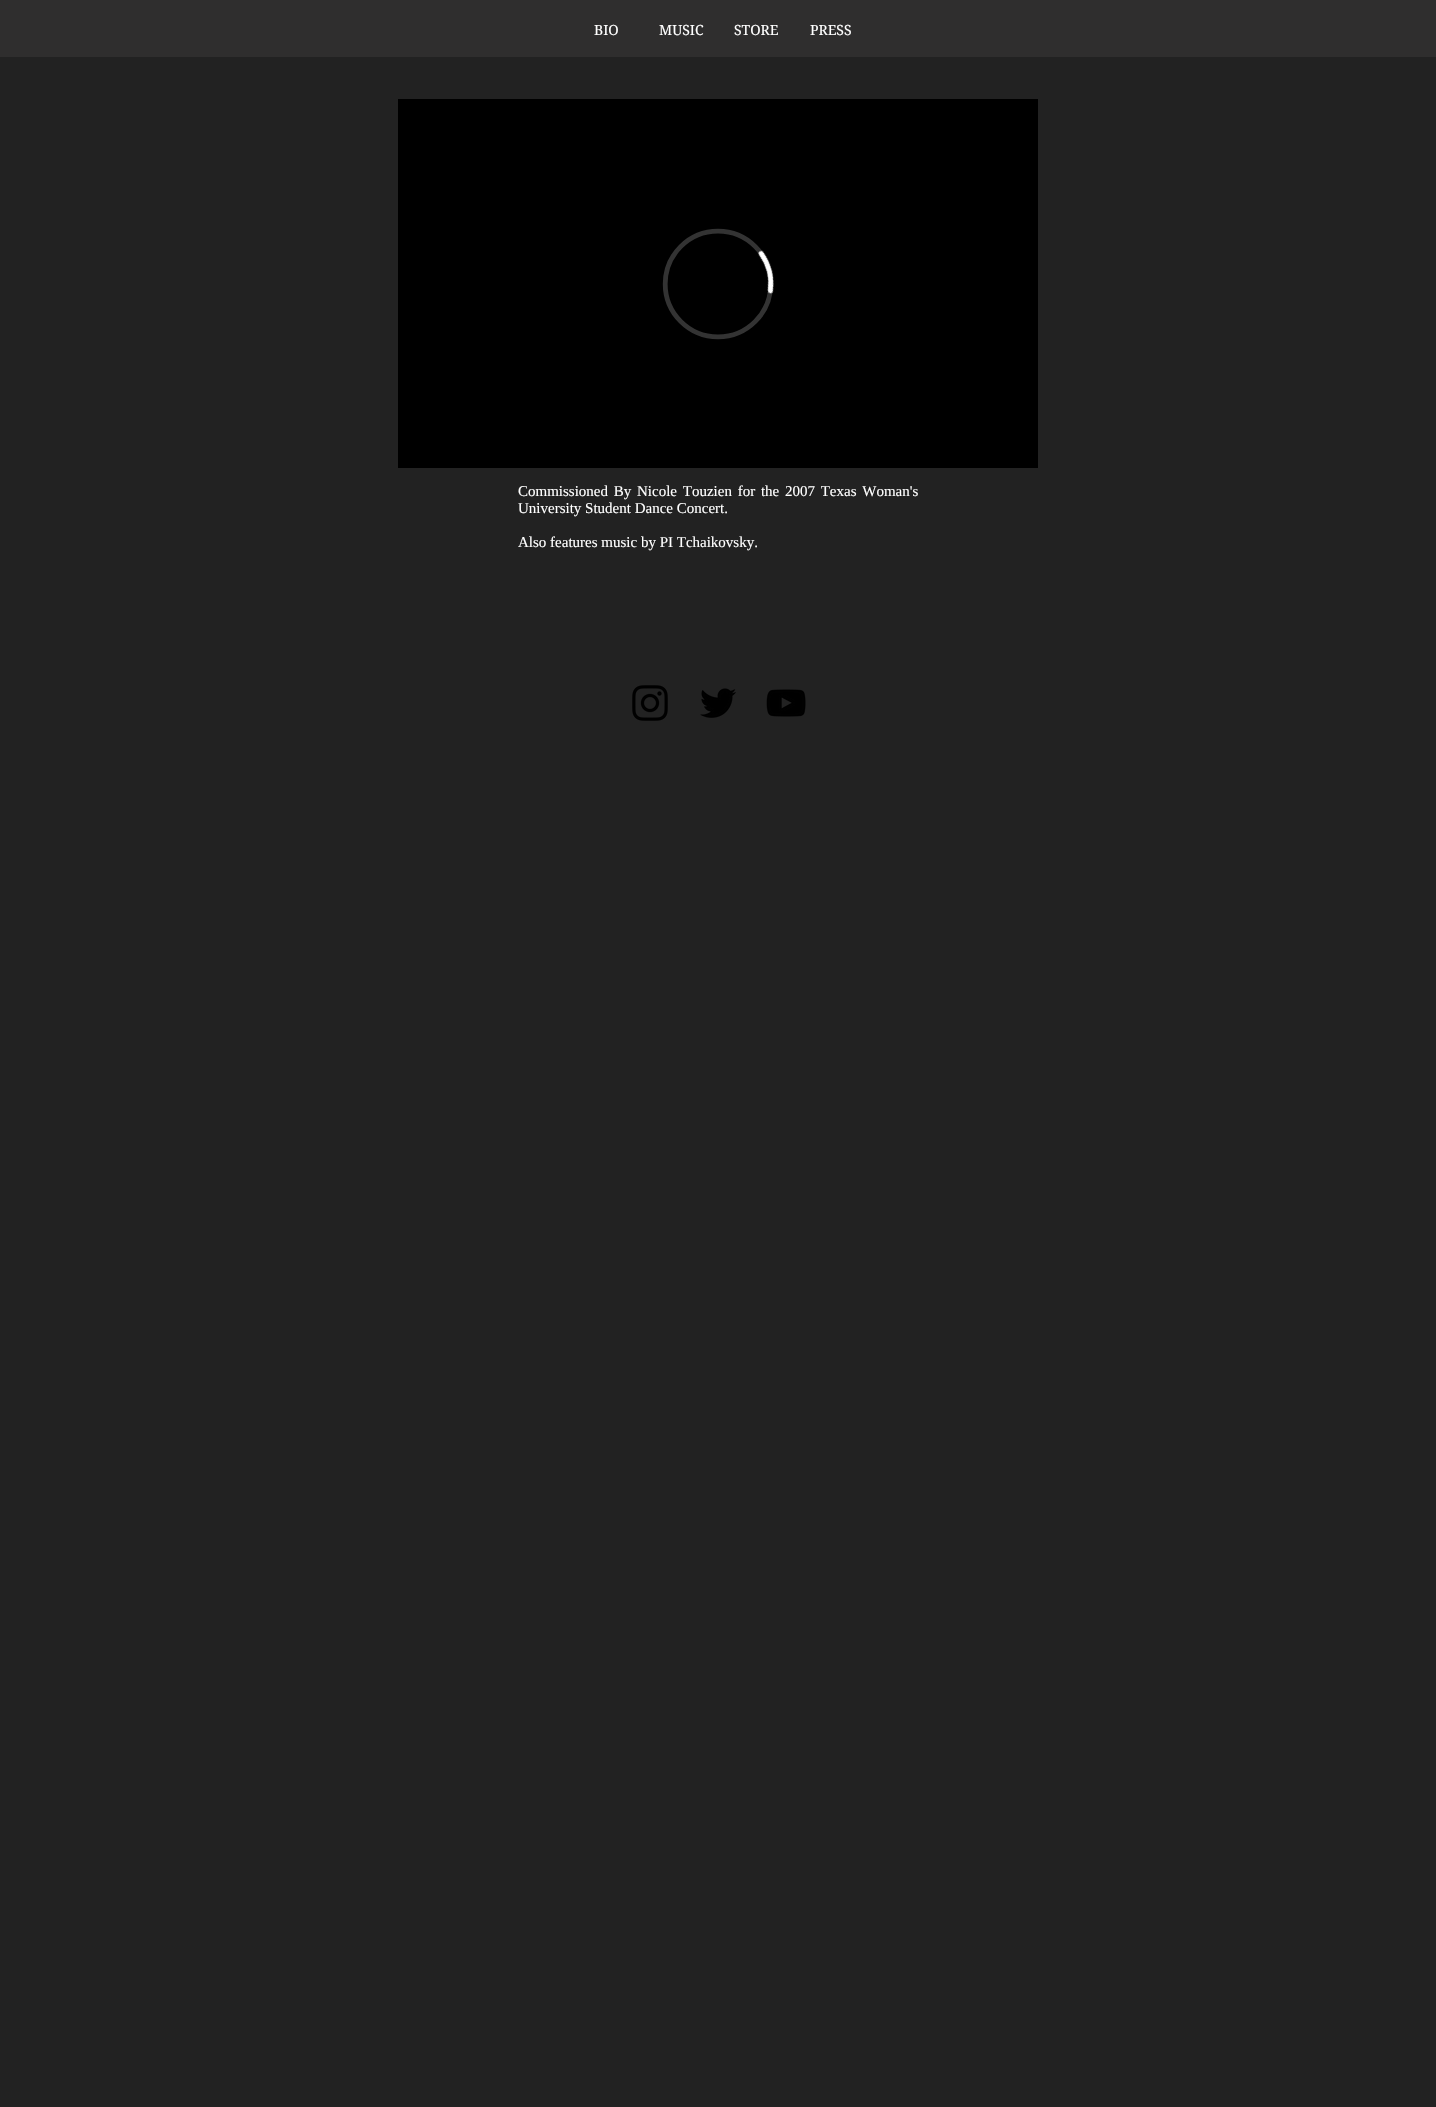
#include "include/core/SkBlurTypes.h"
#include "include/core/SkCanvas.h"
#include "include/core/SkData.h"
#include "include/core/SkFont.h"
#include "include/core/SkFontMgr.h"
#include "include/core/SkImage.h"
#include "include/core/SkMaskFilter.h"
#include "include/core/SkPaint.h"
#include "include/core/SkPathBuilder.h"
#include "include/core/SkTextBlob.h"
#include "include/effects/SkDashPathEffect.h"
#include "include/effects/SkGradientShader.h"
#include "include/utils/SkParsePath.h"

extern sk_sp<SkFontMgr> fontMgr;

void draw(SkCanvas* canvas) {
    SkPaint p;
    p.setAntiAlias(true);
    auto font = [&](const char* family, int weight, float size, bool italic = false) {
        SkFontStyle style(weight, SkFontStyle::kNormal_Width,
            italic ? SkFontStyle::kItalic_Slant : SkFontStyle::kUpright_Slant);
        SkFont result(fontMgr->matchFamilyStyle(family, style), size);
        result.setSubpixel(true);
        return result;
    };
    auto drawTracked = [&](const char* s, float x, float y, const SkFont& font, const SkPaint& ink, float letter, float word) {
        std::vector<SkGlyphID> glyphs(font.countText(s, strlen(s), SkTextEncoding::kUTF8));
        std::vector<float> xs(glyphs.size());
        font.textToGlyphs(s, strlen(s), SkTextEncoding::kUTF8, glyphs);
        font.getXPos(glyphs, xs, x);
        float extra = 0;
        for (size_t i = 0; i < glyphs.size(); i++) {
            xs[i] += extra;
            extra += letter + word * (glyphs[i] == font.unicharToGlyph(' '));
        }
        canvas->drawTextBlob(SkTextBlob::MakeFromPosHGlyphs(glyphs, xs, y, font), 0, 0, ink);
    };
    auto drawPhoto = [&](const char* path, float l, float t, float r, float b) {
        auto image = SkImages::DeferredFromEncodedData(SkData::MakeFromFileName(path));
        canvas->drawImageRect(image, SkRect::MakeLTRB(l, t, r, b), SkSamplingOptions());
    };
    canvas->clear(0xFF222222);
    p.setColor(0xFF2F2E2E);
    canvas->drawRect(SkRect::MakeLTRB(0, 0, 1436, 57), p);
    auto font1 = font("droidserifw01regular", 400, 14);
    p.setColor(0xFFFFFFFF);
    {
        const struct { const char* s; float x, y; } items[] = {
            {"BIO", 594, 35},
            {"MUSIC", 659, 35},
            {"STORE", 734, 35},
            {"PRESS", 810, 35},
        };
        for (auto [s, x, y] : items) {
            canvas->drawString(s, x, y, font1, p);
        }
    }
    drawPhoto("media/1.png", 398, 99, 1038, 468);
    auto font2 = font("Liberation Serif", 400, 15);
    drawTracked("Commissioned By Nicole Touzien for the 2007 Texas Woman's", 518, 496, font2, p, 0, 2);
    canvas->drawString("University Student Dance Concert.", 518, 513, font2, p);
    canvas->drawString("Also features music by PI Tchaikovsky.", 518, 547, font2, p);
    drawPhoto("media/2.png", 632, 685, 668, 721);
    drawPhoto("media/3.png", 700, 688, 736, 718);
    drawPhoto("media/4.png", 766, 689, 806, 717);
}
